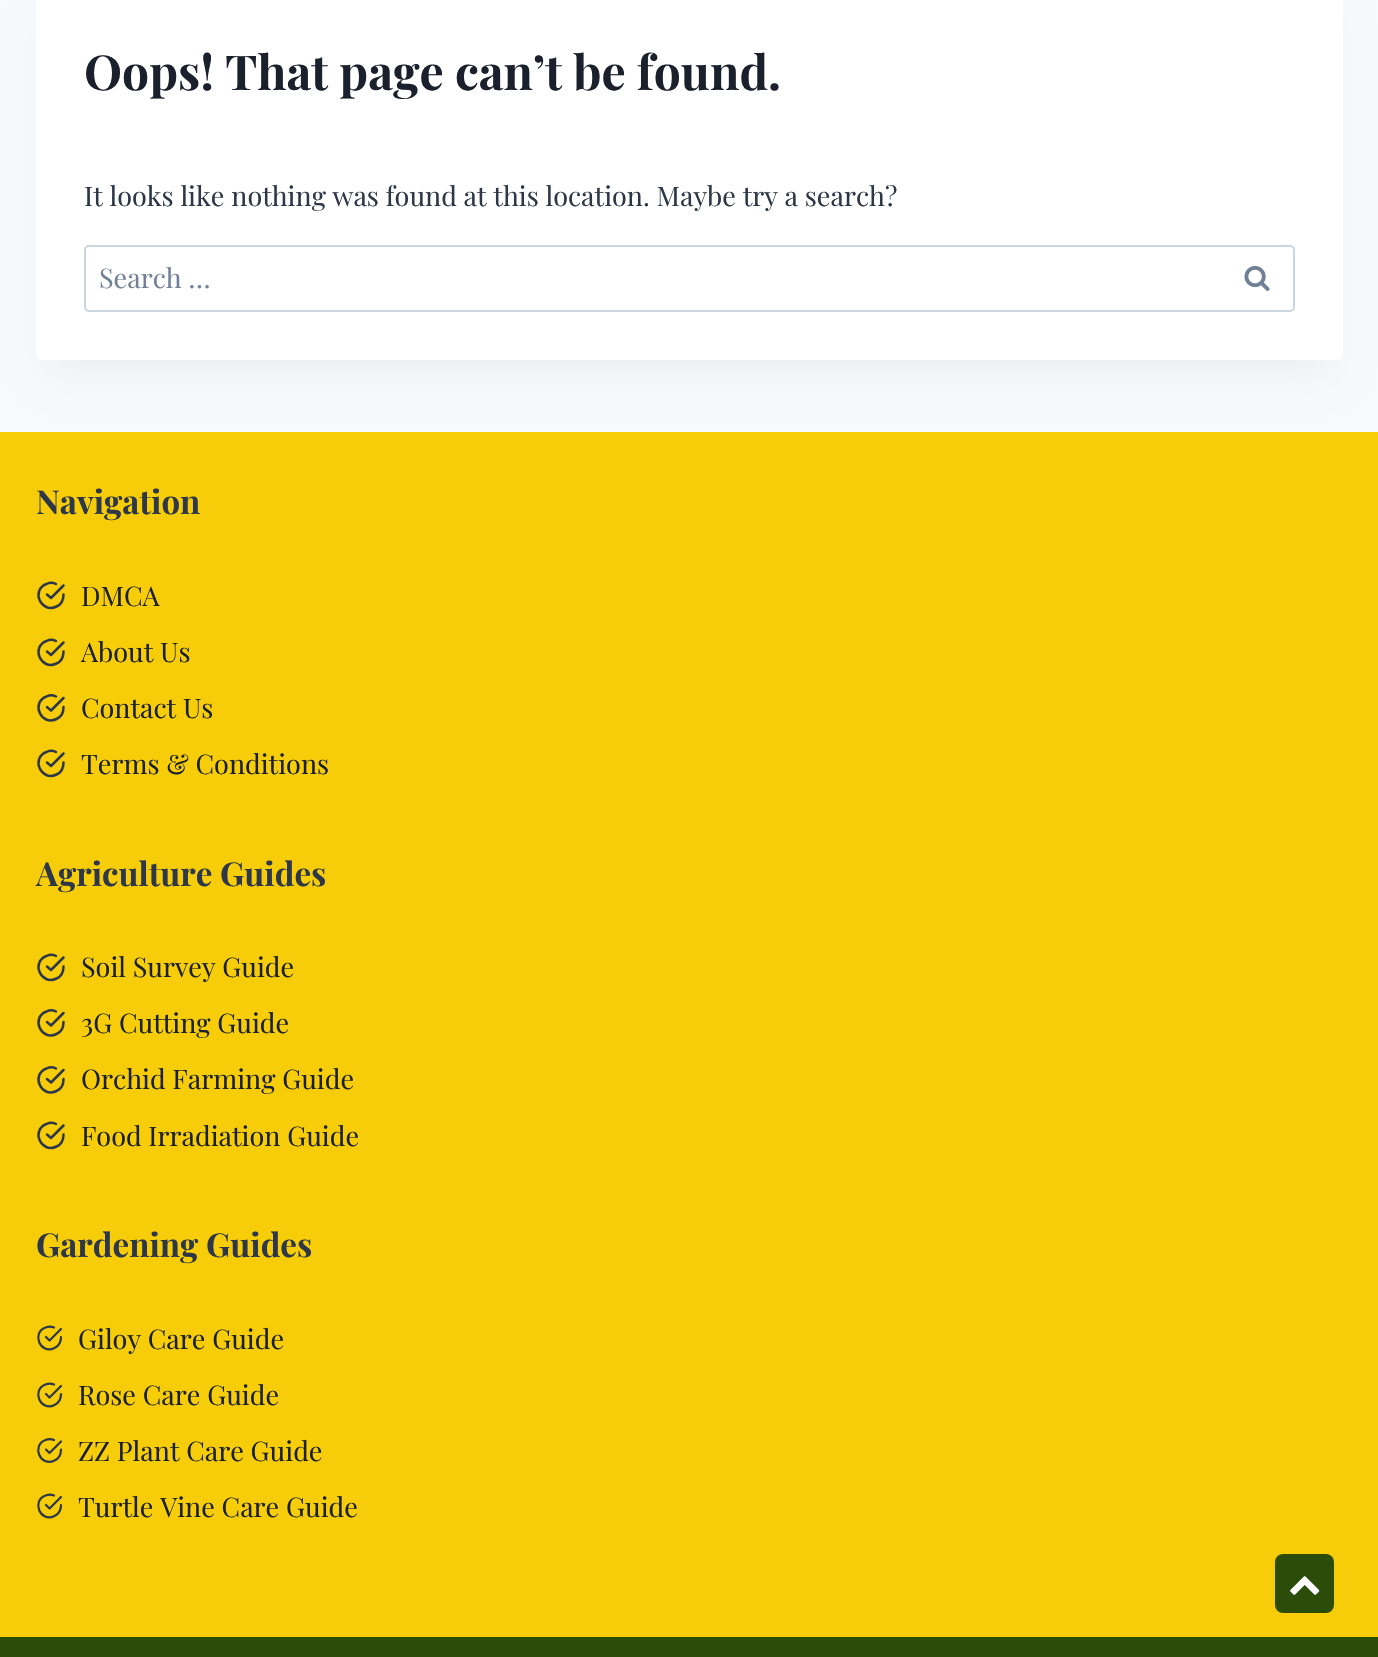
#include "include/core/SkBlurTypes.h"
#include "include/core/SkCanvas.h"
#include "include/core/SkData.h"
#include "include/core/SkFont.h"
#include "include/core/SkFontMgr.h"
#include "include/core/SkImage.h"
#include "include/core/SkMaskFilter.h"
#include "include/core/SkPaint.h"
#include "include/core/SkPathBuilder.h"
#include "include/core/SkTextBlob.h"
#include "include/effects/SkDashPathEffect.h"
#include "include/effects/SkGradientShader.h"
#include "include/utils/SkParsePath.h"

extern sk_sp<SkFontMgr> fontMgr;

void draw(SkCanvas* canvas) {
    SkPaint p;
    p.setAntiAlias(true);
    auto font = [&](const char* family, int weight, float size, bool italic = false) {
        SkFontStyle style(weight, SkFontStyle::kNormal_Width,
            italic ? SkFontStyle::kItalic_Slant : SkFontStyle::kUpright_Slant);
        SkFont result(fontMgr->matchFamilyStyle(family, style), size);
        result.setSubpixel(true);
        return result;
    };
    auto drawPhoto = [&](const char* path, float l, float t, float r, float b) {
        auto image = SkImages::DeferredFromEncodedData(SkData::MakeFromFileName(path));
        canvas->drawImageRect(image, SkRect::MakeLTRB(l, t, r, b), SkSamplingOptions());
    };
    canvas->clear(0xFFF7FAFC);
    p.setColor(0x0D000000);
    p.setMaskFilter(SkMaskFilter::MakeBlur(kNormal_SkBlurStyle, 19));
    canvas->drawRect(SkRect::MakeLTRB(51, 24, 1328, 368), p);
    p.setMaskFilter(nullptr);
    p.setColor(0xFFFFFFFF);
    canvas->drawRoundRect(SkRect::MakeLTRB(36, -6, 1343, 360), 6, 6, p);
    auto font1 = font("Playfair Display", 700, 48);
    p.setColor(0xFF1A202C);
    canvas->drawString("Oops! That page can’t be found.", 84, 90, font1, p);
    auto font2 = font("Playfair Display", 400, 27);
    p.setColor(0xFF2D3748);
    canvas->drawString("It looks like nothing was found at this location. Maybe try a search?", 84, 206, font2, p);
    p.setStyle(SkPaint::kStroke_Style);
    p.setStrokeWidth(2);
    p.setColor(0xFFCBD5E0);
    canvas->drawRoundRect(SkRect::MakeLTRB(85, 246, 1294, 311), 4, 4, p);
    p.setStyle(SkPaint::kFill_Style);
    p.setColor(0xFF718096);
    canvas->drawString("Search …", 99, 288, font2, p);
    drawPhoto("media/1.png", 1244, 265, 1270, 291);
    p.setColor(0xFFF7CC08);
    canvas->drawRect(SkRect::MakeLTRB(0, 432, 1378, 1637), p);
    auto font3 = font("Playfair Display", 700, 33);
    p.setColor(0xFF2D3748);
    canvas->drawString("Navigation", 36, 514, font3, p);
    p.setStyle(SkPaint::kStroke_Style);
    p.setStrokeWidth(2.5f);
    p.setStrokeCap(SkPaint::kRound_Cap);
    p.setStrokeJoin(SkPaint::kRound_Join);
    canvas->drawPath(SkPathBuilder().moveTo(63.5f, 594.5f).cubicTo(63.5f, 599.5f, 61.5f, 604.5f, 56.5f, 606.5f).cubicTo(41, 614, 30.5f, 590, 46.5f, 584).cubicTo(49.5f, 582.5f, 53, 582.5f, 56, 584).moveTo(63.5f, 585.5f).lineTo(51, 598).lineTo(47, 594.5f).detach(), p);
    p.setStyle(SkPaint::kFill_Style);
    p.setColor(0xFF1A202C);
    canvas->drawString("DMCA", 81, 606, font2, p);
    p.setStyle(SkPaint::kStroke_Style);
    p.setColor(0xFF2D3748);
    canvas->drawPath(SkPathBuilder().moveTo(63.5f, 651.5f).cubicTo(63.5f, 656.5f, 61.5f, 661.5f, 56.5f, 663.5f).cubicTo(41, 671, 30.5f, 647, 46.5f, 641).cubicTo(49.5f, 639.5f, 53, 639.5f, 56, 641).moveTo(63.5f, 642.5f).lineTo(51, 655).lineTo(47, 651.5f).detach(), p);
    p.setStyle(SkPaint::kFill_Style);
    p.setColor(0xFF1A202C);
    canvas->drawString("About Us", 81, 662, font2, p);
    p.setStyle(SkPaint::kStroke_Style);
    p.setColor(0xFF2D3748);
    canvas->drawPath(SkPathBuilder().moveTo(63.5f, 707).cubicTo(63.5f, 712, 61.5f, 717, 56.5f, 719).cubicTo(41, 726.5f, 30.5f, 702.5f, 46.5f, 696.5f).cubicTo(49.5f, 695, 53, 695, 56, 696.5f).moveTo(63.5f, 698).lineTo(51, 710.5f).lineTo(47, 707).detach(), p);
    p.setStyle(SkPaint::kFill_Style);
    p.setColor(0xFF1A202C);
    canvas->drawString("Contact Us", 81, 718, font2, p);
    p.setStyle(SkPaint::kStroke_Style);
    p.setColor(0xFF2D3748);
    canvas->drawPath(SkPathBuilder().moveTo(63.5f, 762.5f).cubicTo(63.5f, 767.5f, 61.5f, 772.5f, 56.5f, 774.5f).cubicTo(41, 782, 30.5f, 758, 46.5f, 752).cubicTo(49.5f, 750.5f, 53, 750.5f, 56, 752).moveTo(63.5f, 753.5f).lineTo(51, 766).lineTo(47, 762.5f).detach(), p);
    p.setStyle(SkPaint::kFill_Style);
    p.setColor(0xFF1A202C);
    canvas->drawString("Terms & Conditions", 81, 774, font2, p);
    p.setColor(0xFF2D3748);
    canvas->drawString("Agriculture Guides", 36, 886, font3, p);
    p.setStyle(SkPaint::kStroke_Style);
    canvas->drawPath(SkPathBuilder().moveTo(63.5f, 966.5f).cubicTo(63.5f, 971.5f, 61.5f, 976.5f, 56.5f, 978.5f).cubicTo(41, 986, 30.5f, 962, 46.5f, 956).cubicTo(49.5f, 954.5f, 53, 954.5f, 56, 956).moveTo(63.5f, 957.5f).lineTo(51, 970).lineTo(47, 966.5f).detach(), p);
    p.setStyle(SkPaint::kFill_Style);
    p.setColor(0xFF1A202C);
    canvas->drawString("Soil Survey Guide", 81, 977, font2, p);
    p.setStyle(SkPaint::kStroke_Style);
    p.setColor(0xFF2D3748);
    canvas->drawPath(SkPathBuilder().moveTo(63.5f, 1022).cubicTo(63.5f, 1027, 61.5f, 1032, 56.5f, 1034).cubicTo(41, 1041.5f, 30.5f, 1017.5f, 46.5f, 1011.5f).cubicTo(49.5f, 1010, 53, 1010, 56, 1011.5f).moveTo(63.5f, 1013).lineTo(51, 1025.5f).lineTo(47, 1022).detach(), p);
    p.setStyle(SkPaint::kFill_Style);
    p.setColor(0xFF1A202C);
    canvas->drawString("3G Cutting Guide", 81, 1033, font2, p);
    p.setStyle(SkPaint::kStroke_Style);
    p.setColor(0xFF2D3748);
    canvas->drawPath(SkPathBuilder().moveTo(63.5f, 1079).cubicTo(63.5f, 1084, 61.5f, 1089, 56.5f, 1091).cubicTo(41, 1098.5f, 30.5f, 1074.5f, 46.5f, 1068.5f).cubicTo(49.5f, 1067, 53, 1067, 56, 1068.5f).moveTo(63.5f, 1070).lineTo(51, 1082.5f).lineTo(47, 1079).detach(), p);
    p.setStyle(SkPaint::kFill_Style);
    p.setColor(0xFF1A202C);
    canvas->drawString("Orchid Farming Guide", 81, 1089, font2, p);
    p.setStyle(SkPaint::kStroke_Style);
    p.setColor(0xFF2D3748);
    canvas->drawPath(SkPathBuilder().moveTo(63.5f, 1134.5f).cubicTo(63.5f, 1139.5f, 61.5f, 1144.5f, 56.5f, 1146.5f).cubicTo(41, 1154, 30.5f, 1130, 46.5f, 1124).cubicTo(49.5f, 1122.5f, 53, 1122.5f, 56, 1124).moveTo(63.5f, 1125.5f).lineTo(51, 1138).lineTo(47, 1134.5f).detach(), p);
    p.setStyle(SkPaint::kFill_Style);
    p.setColor(0xFF1A202C);
    canvas->drawString("Food Irradiation Guide", 81, 1146, font2, p);
    p.setColor(0xFF2D3748);
    canvas->drawString("Gardening Guides", 36, 1257, font3, p);
    p.setStyle(SkPaint::kStroke_Style);
    p.setStrokeWidth(2.2f);
    canvas->drawPath(SkPathBuilder().moveTo(61, 1337).cubicTo(61, 1341.5f, 59, 1346, 54.5f, 1348).cubicTo(40.5f, 1355, 31, 1333, 45.5f, 1327.5f).cubicTo(48, 1326.5f, 51.5f, 1326.5f, 54, 1327.5f).moveTo(61, 1329).lineTo(49.5f, 1340.5f).lineTo(46, 1337).detach(), p);
    p.setStyle(SkPaint::kFill_Style);
    p.setColor(0xFF1A202C);
    canvas->drawString("Giloy Care Guide", 78, 1349, font2, p);
    p.setStyle(SkPaint::kStroke_Style);
    p.setColor(0xFF2D3748);
    canvas->drawPath(SkPathBuilder().moveTo(61, 1394).cubicTo(61, 1398.5f, 59, 1403, 54.5f, 1405).cubicTo(40.5f, 1412, 31, 1390, 45.5f, 1384.5f).cubicTo(48, 1383.5f, 51.5f, 1383.5f, 54, 1384.5f).moveTo(61, 1386).lineTo(49.5f, 1397.5f).lineTo(46, 1394).detach(), p);
    p.setStyle(SkPaint::kFill_Style);
    p.setColor(0xFF1A202C);
    canvas->drawString("Rose Care Guide", 78, 1405, font2, p);
    p.setStyle(SkPaint::kStroke_Style);
    p.setColor(0xFF2D3748);
    canvas->drawPath(SkPathBuilder().moveTo(61, 1449.5f).cubicTo(61, 1454, 59, 1458.5f, 54.5f, 1460.5f).cubicTo(40.5f, 1467.5f, 31, 1445.5f, 45.5f, 1440).cubicTo(48, 1439, 51.5f, 1439, 54, 1440).moveTo(61, 1441.5f).lineTo(49.5f, 1453).lineTo(46, 1449.5f).detach(), p);
    p.setStyle(SkPaint::kFill_Style);
    p.setColor(0xFF1A202C);
    canvas->drawString("ZZ Plant Care Guide", 78, 1461, font2, p);
    p.setStyle(SkPaint::kStroke_Style);
    p.setColor(0xFF2D3748);
    canvas->drawPath(SkPathBuilder().moveTo(61, 1505).cubicTo(61, 1509.5f, 59, 1514, 54.5f, 1516).cubicTo(40.5f, 1523, 31, 1501, 45.5f, 1495.5f).cubicTo(48, 1494.5f, 51.5f, 1494.5f, 54, 1495.5f).moveTo(61, 1497).lineTo(49.5f, 1508.5f).lineTo(46, 1505).detach(), p);
    p.setStyle(SkPaint::kFill_Style);
    p.setColor(0xFF1A202C);
    canvas->drawString("Turtle Vine Care Guide", 78, 1517, font2, p);
    p.setColor(0xFF2B4D09);
    canvas->drawRect(SkRect::MakeLTRB(0, 1637, 1378, 1657), p);
    canvas->drawRoundRect(SkRect::MakeLTRB(1275, 1554, 1334, 1613), 8, 8, p);
    drawPhoto("media/2.png", 1290, 1576, 1320, 1595);
}
